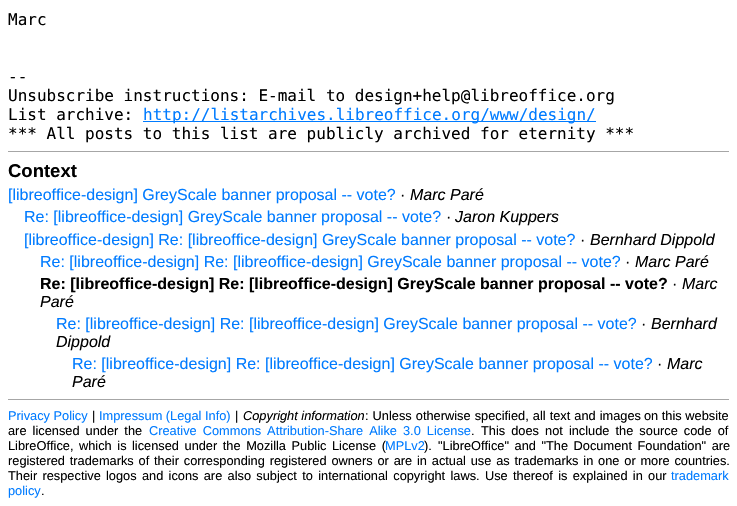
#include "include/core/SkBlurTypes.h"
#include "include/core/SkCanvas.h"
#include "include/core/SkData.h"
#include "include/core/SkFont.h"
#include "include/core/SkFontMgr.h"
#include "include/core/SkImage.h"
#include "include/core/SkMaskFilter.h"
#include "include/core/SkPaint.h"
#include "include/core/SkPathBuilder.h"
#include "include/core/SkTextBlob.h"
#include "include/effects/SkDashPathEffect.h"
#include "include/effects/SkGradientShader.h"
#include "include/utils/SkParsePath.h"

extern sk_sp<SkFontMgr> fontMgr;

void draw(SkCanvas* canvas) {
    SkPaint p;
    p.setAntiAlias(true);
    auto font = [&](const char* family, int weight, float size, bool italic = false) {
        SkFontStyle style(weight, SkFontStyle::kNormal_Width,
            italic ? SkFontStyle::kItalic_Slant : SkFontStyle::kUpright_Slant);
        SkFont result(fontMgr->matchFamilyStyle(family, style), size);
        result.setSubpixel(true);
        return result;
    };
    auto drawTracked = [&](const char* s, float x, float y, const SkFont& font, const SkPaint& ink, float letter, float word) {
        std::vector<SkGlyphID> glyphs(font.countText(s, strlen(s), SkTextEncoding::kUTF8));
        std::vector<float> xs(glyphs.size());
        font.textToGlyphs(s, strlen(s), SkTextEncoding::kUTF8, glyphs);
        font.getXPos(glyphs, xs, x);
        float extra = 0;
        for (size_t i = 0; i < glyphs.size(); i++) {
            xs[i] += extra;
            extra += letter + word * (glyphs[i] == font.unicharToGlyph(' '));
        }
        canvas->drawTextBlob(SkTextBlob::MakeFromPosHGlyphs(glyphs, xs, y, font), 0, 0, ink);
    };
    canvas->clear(0xFFFFFFFF);
    auto font1 = font("DejaVu Sans Mono", 400, 16);
    p.setColor(0xFF000000);
    {
        const struct { const char* s; float x, y; } items[] = {
            {"Marc", 8, 25},
            {"--", 8, 82},
            {"Unsubscribe instructions: E-mail to design+help@libreoffice.org", 8, 101},
            {"List archive:", 8, 120},
        };
        for (auto [s, x, y] : items) {
            canvas->drawString(s, x, y, font1, p);
        }
    }
    p.setColor(0xFF007BFF);
    canvas->drawRect(SkRect::MakeLTRB(143, 121, 596, 122), p);
    canvas->drawString("http://listarchives.libreoffice.org/www/design/", 143, 120, font1, p);
    p.setColor(0xFF000000);
    canvas->drawString("*** All posts to this list are publicly archived for eternity ***", 8, 139, font1, p);
    p.setColor(0xFFA6A6A6);
    canvas->drawRect(SkRect::MakeLTRB(8, 151, 729, 152), p);
    auto font2 = font("Liberation Sans", 700, 18.5f);
    p.setColor(0xFF000000);
    canvas->drawString("Context", 8, 177, font2, p);
    auto font3 = font("Liberation Sans", 400, 16);
    p.setColor(0xFF007BFF);
    canvas->drawString("[libreoffice-design] GreyScale banner proposal -- vote?", 8, 200, font3, p);
    p.setColor(0xFF000000);
    canvas->drawString("·", 400, 200, font3, p);
    auto font4 = font("Liberation Sans", 400, 16, true);
    canvas->drawString("Marc Paré", 410, 200, font4, p);
    p.setColor(0xFF007BFF);
    canvas->drawString("Re: [libreoffice-design] GreyScale banner proposal -- vote?", 24, 222, font3, p);
    p.setColor(0xFF000000);
    canvas->drawString("·", 446, 222, font3, p);
    canvas->drawString("Jaron Kuppers", 455, 222, font4, p);
    p.setColor(0xFF007BFF);
    canvas->drawString("[libreoffice-design] Re: [libreoffice-design] GreyScale banner proposal -- vote?", 24, 245, font3, p);
    p.setColor(0xFF000000);
    canvas->drawString("·", 580, 245, font3, p);
    canvas->drawString("Bernhard Dippold", 590, 245, font4, p);
    p.setColor(0xFF007BFF);
    canvas->drawString("Re: [libreoffice-design] Re: [libreoffice-design] GreyScale banner proposal -- vote?", 40, 267, font3, p);
    p.setColor(0xFF000000);
    canvas->drawString("·", 625, 267, font3, p);
    canvas->drawString("Marc Paré", 635, 267, font4, p);
    auto font5 = font("Liberation Sans", 700, 16);
    canvas->drawString("Re: [libreoffice-design] Re: [libreoffice-design] GreyScale banner proposal -- vote?", 40, 289, font5, p);
    canvas->drawString("·", 672, 289, font3, p);
    canvas->drawString("Marc", 682, 289, font4, p);
    canvas->drawString("Paré", 40, 307, font4, p);
    p.setColor(0xFF007BFF);
    canvas->drawString("Re: [libreoffice-design] Re: [libreoffice-design] GreyScale banner proposal -- vote?", 56, 329, font3, p);
    p.setColor(0xFF000000);
    canvas->drawString("·", 641, 329, font3, p);
    canvas->drawString("Bernhard", 651, 329, font4, p);
    canvas->drawString("Dippold", 56, 347, font4, p);
    p.setColor(0xFF007BFF);
    canvas->drawString("Re: [libreoffice-design] Re: [libreoffice-design] GreyScale banner proposal -- vote?", 72, 369, font3, p);
    p.setColor(0xFF000000);
    canvas->drawString("·", 657, 369, font3, p);
    canvas->drawString("Marc", 667, 369, font4, p);
    canvas->drawString("Paré", 72, 387, font4, p);
    p.setColor(0xFFA6A6A6);
    canvas->drawRect(SkRect::MakeLTRB(8, 399, 729, 400), p);
    auto font6 = font("Liberation Sans", 400, 12.8f);
    p.setColor(0xFF007BFF);
    canvas->drawString("Privacy Policy", 8, 420, font6, p);
    p.setColor(0xFF000000);
    canvas->drawString("|", 92, 420, font6, p);
    p.setColor(0xFF007BFF);
    canvas->drawString("Impressum (Legal Info)", 99, 420, font6, p);
    p.setColor(0xFF000000);
    canvas->drawString("|", 235, 420, font6, p);
    auto font7 = font("Liberation Sans", 400, 12.8f, true);
    canvas->drawString("Copyright information", 243, 420, font7, p);
    drawTracked(": Unless otherwise specified, all text and images", 365, 420, font6, p, 0, 0.5f);
    canvas->drawString("on this website", 644, 420, font6, p);
    drawTracked("are licensed under the", 8, 435, font6, p, 0, 2.5f);
    p.setColor(0xFF007BFF);
    drawTracked("Creative Commons Attribution-Share Alike 3.0 License", 149, 435, font6, p, 0, 2.5f);
    p.setColor(0xFF000000);
    canvas->drawString(".", 471, 435, font6, p);
    drawTracked("This does not include the source code of", 481, 435, font6, p, 0, 2.5f);
    drawTracked("LibreOffice, which is", 8, 450, font6, p, 0, 2);
    drawTracked("licensed under the Mozilla Public License (", 132, 450, font6, p, 0, 2);
    p.setColor(0xFF007BFF);
    canvas->drawString("MPLv2", 385, 450, font6, p);
    p.setColor(0xFF000000);
    canvas->drawString(").", 424, 450, font6, p);
    drawTracked("\"LibreOffice\" and \"The Document Foundation\" are", 438, 450, font6, p, 0, 2);
    drawTracked("registered trademarks of their corresponding registered owners or are", 8, 465, font6, p, 0, 1.25f);
    drawTracked("in actual use as trademarks in one or more countries.", 417, 465, font6, p, 0, 1.25f);
    {
        const struct { const char* s; float x, y; } items[] = {
            {"Their respective", 8, 480},
            {"logos and icons are also subject to international copyright laws. Use", 106, 480},
            {"thereof is explained in our", 513, 480},
        };
        for (auto [s, x, y] : items) {
            drawTracked(s, x, y, font6, p, 0, 1.75f);
        }
    }
    p.setColor(0xFF007BFF);
    canvas->drawString("trademark", 671, 480, font6, p);
    canvas->drawString("policy", 8, 495, font6, p);
    p.setColor(0xFF000000);
    canvas->drawString(".", 41, 495, font6, p);
}
